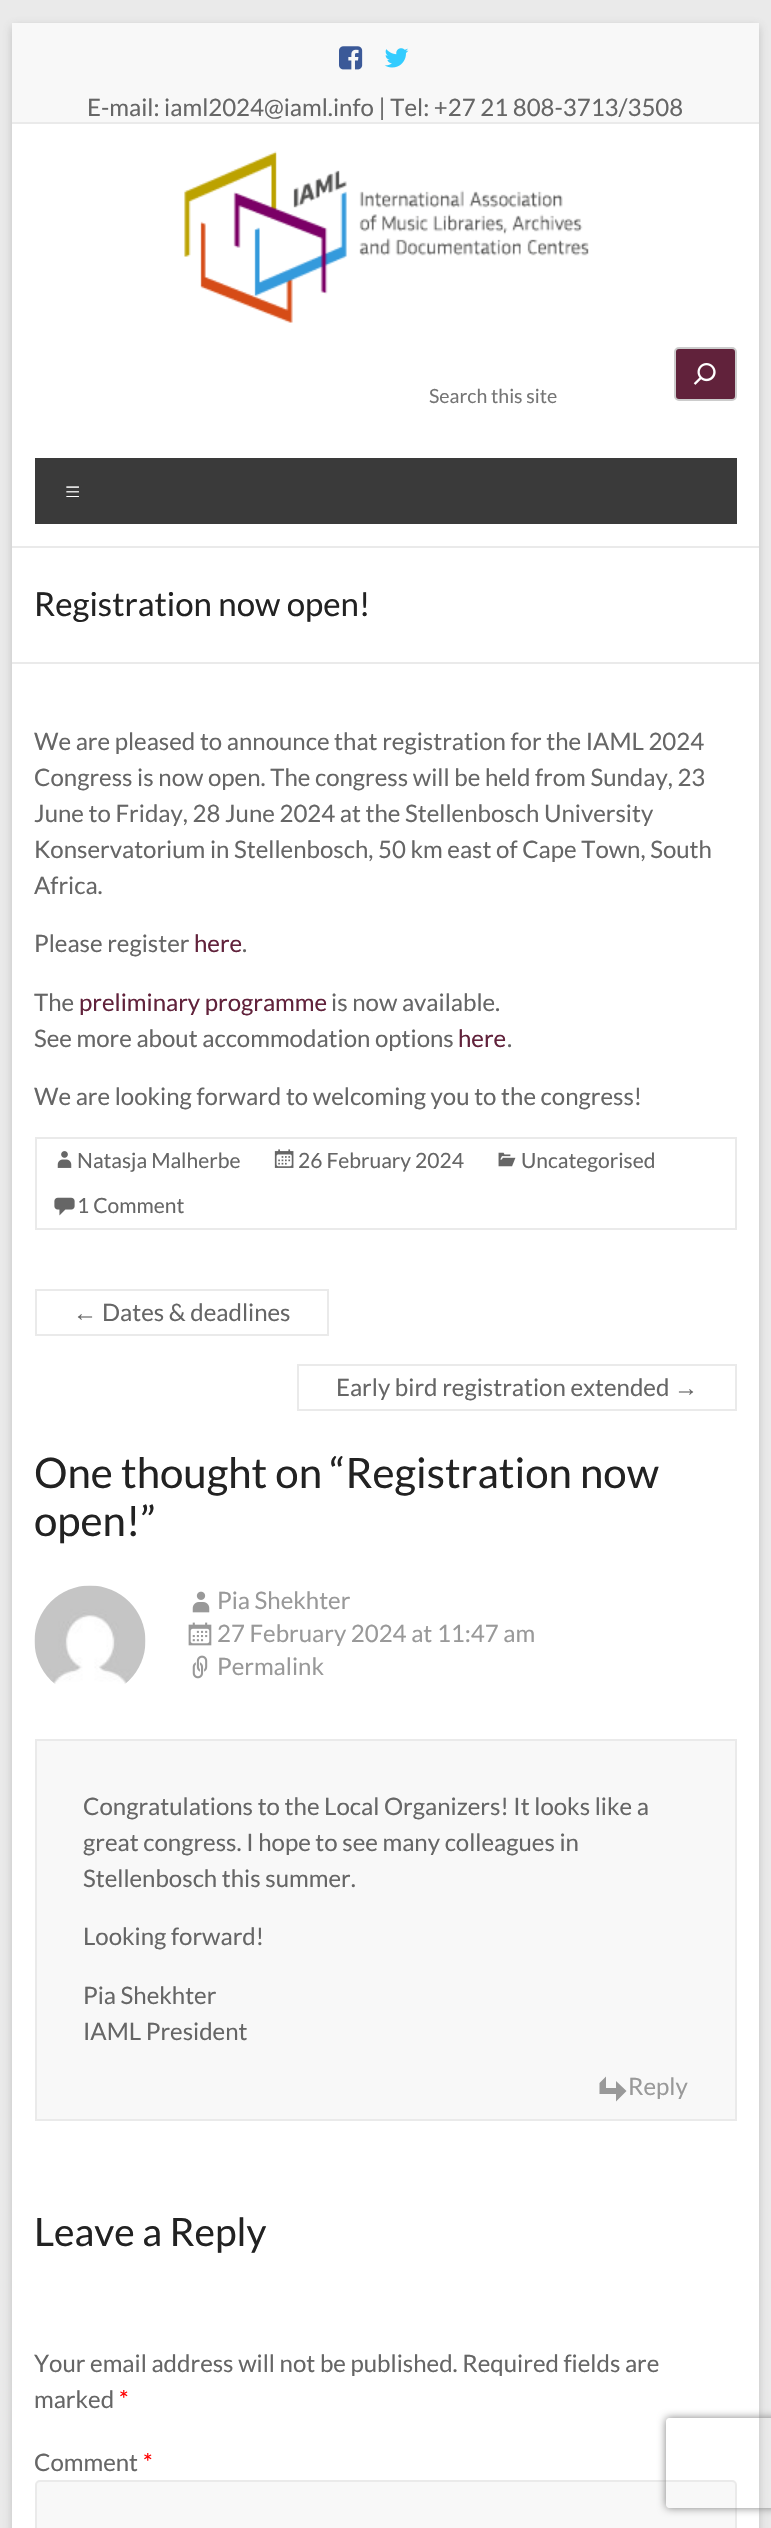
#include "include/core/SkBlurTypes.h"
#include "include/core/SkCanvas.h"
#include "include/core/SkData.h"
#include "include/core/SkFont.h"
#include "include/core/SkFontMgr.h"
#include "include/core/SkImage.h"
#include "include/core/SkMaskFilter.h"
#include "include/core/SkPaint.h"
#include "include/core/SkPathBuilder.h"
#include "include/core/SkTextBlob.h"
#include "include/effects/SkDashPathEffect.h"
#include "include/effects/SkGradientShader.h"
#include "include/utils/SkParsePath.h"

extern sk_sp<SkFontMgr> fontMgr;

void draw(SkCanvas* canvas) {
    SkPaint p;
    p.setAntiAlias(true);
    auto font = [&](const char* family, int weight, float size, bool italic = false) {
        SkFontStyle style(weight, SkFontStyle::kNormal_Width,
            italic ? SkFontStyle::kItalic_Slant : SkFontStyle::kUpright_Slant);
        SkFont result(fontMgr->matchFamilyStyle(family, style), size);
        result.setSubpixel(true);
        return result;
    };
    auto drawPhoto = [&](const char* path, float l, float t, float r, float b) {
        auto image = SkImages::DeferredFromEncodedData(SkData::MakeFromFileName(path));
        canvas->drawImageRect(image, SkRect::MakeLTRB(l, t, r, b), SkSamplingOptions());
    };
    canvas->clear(0xFFEAEAEA);
    p.setColor(0x4D646464);
    p.setMaskFilter(SkMaskFilter::MakeBlur(kNormal_SkBlurStyle, 4.5f));
    canvas->drawRect(SkRect::MakeLTRB(12, 26, 759, 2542), p);
    p.setMaskFilter(nullptr);
    {
        const struct { float l, t, r, b; SkColor color; } items[] = {
            {12, 124, 759, 2528, 0xFFFFFFFF},
            {12, 23, 759, 122, 0xFFF8F8F8},
            {12, 122, 759, 124, 0xFFEAEAEA},
        };
        for (auto [l, t, r, b, color] : items) {
            p.setColor(color);
            canvas->drawRect(SkRect::MakeLTRB(l, t, r, b), p);
        }
    }
    drawPhoto("media/1.png", 339, 46, 363, 70);
    drawPhoto("media/2.png", 384, 48, 409, 68);
    auto font1 = font("Lato", 400, 24);
    p.setColor(0xFF666666);
    canvas->drawString("E-mail: iaml2024@iaml.info | Tel: +27 21 808-3713/3508", 87, 116, font1, p);
    p.setColor(0xFFEAEAEA);
    canvas->drawRect(SkRect::MakeLTRB(12, 546, 759, 548), p);
    drawPhoto("media/3.png", 184, 151, 589, 323);
    auto font2 = font("Lato", 400, 19.5f);
    p.setColor(0xFF757575);
    canvas->drawString("Search this site", 429, 403, font2, p);
    p.setColor(0xFF61223B);
    canvas->drawRoundRect(SkRect::MakeLTRB(675, 348, 736, 400), 4, 4, p);
    p.setStyle(SkPaint::kStroke_Style);
    p.setStrokeWidth(2);
    p.setColor(0xFFCCCCCC);
    canvas->drawRoundRect(SkRect::MakeLTRB(675, 348, 736, 400), 4, 4, p);
    drawPhoto("media/4.png", 693, 363, 716, 385);
    p.setStyle(SkPaint::kFill_Style);
    p.setColor(0xFF3A3A3A);
    canvas->drawRect(SkRect::MakeLTRB(35, 458, 737, 524), p);
    auto font3 = font("Lato", 300, 30);
    p.setColor(0xFFFFFFFF);
    canvas->drawString("≡", 64, 502, font3, p);
    p.setColor(0xFFEAEAEA);
    canvas->drawRect(SkRect::MakeLTRB(12, 662, 759, 664), p);
    auto font4 = font("Lato", 400, 33);
    p.setColor(0xFF222222);
    canvas->drawString("Registration now open!", 34, 616, font4, p);
    p.setColor(0xFF666666);
    {
        const struct { const char* s; float x, y; } items[] = {
            {"We are pleased to announce that registration for the IAML 2024", 34, 750},
            {"Congress is now open. The congress will be held from Sunday, 23", 34, 786},
            {"June to Friday, 28 June 2024 at the Stellenbosch University", 34, 822},
            {"Konservatorium in Stellenbosch, 50 km east of Cape Town, South", 34, 858},
            {"Africa.", 34, 894},
            {"Please register", 34, 952},
        };
        for (auto [s, x, y] : items) {
            canvas->drawString(s, x, y, font1, p);
        }
    }
    p.setColor(0xFF61223B);
    canvas->drawString("here", 194, 952, font1, p);
    p.setColor(0xFF666666);
    canvas->drawString(".", 242, 952, font1, p);
    canvas->drawString("The", 34, 1011, font1, p);
    p.setColor(0xFF61223B);
    canvas->drawString("preliminary programme", 79, 1011, font1, p);
    p.setColor(0xFF666666);
    canvas->drawString("is now available.", 331, 1011, font1, p);
    canvas->drawString("See more about accommodation options", 34, 1047, font1, p);
    p.setColor(0xFF61223B);
    canvas->drawString("here", 458, 1047, font1, p);
    p.setColor(0xFF666666);
    canvas->drawString(".", 507, 1047, font1, p);
    canvas->drawString("We are looking forward to welcoming you to the congress!", 34, 1105, font1, p);
    p.setStyle(SkPaint::kStroke_Style);
    p.setColor(0xFFEAEAEA);
    canvas->drawRect(SkRect::MakeLTRB(36, 1138, 736, 1229), p);
    drawPhoto("media/5.png", 57, 1151, 72, 1168);
    auto font5 = font("Lato", 400, 21);
    p.setStyle(SkPaint::kFill_Style);
    p.setColor(0xFF666666);
    canvas->drawString("Natasja Malherbe", 77, 1168, font5, p);
    drawPhoto("media/6.png", 274, 1149, 294, 1168);
    canvas->drawString("26 February 2024", 298, 1168, font5, p);
    drawPhoto("media/7.png", 498, 1152, 516, 1167);
    canvas->drawString("Uncategorised", 521, 1168, font5, p);
    drawPhoto("media/8.png", 54, 1197, 75, 1216);
    canvas->drawString("1 Comment", 77, 1213, font5, p);
    auto font6 = font("Liberation Sans", 400, 24);
    canvas->drawString("←", 73, 1321, font6, p);
    {
        const struct { float l, t, r, b; SkColor color; } items[] = {
            {35, 1334, 98, 1336, 0xFFEAEAEA},
            {35, 1289, 329, 1291, 0xFFEAEAEA},
            {35, 1289, 37, 1335, 0xFFEAEAEA},
            {327, 1289, 329, 1335, 0xFFEAEAEA},
            {98, 1334, 329, 1336, 0xFFEAEAEA},
        };
        for (auto [l, t, r, b, color] : items) {
            p.setColor(color);
            canvas->drawRect(SkRect::MakeLTRB(l, t, r, b), p);
        }
    }
    p.setColor(0xFF666666);
    canvas->drawString("Dates & deadlines", 102, 1321, font1, p);
    canvas->drawString("Early bird registration extended", 336, 1396, font1, p);
    {
        const struct { float l, t, r, b; SkColor color; } items[] = {
            {297, 1364, 737, 1366, 0xFFEAEAEA},
            {297, 1409, 674, 1411, 0xFFEAEAEA},
            {297, 1364, 299, 1410, 0xFFEAEAEA},
        };
        for (auto [l, t, r, b, color] : items) {
            p.setColor(color);
            canvas->drawRect(SkRect::MakeLTRB(l, t, r, b), p);
        }
    }
    p.setColor(0xFF666666);
    canvas->drawString("→", 674, 1396, font6, p);
    p.setColor(0xFFEAEAEA);
    canvas->drawRect(SkRect::MakeLTRB(735, 1364, 737, 1410), p);
    canvas->drawRect(SkRect::MakeLTRB(674, 1409, 737, 1411), p);
    auto font7 = font("Lato", 400, 42);
    p.setColor(0xFF222222);
    canvas->drawString("One thought on “Registration now", 34, 1488, font7, p);
    canvas->drawString("open!”", 34, 1536, font7, p);
    drawPhoto("media/9.png", 34, 1585, 146, 1684);
    drawPhoto("media/10.png", 192, 1591, 210, 1613);
    p.setColor(0xFF999999);
    canvas->drawString("Pia Shekhter", 217, 1609, font1, p);
    drawPhoto("media/11.png", 188, 1622, 212, 1646);
    canvas->drawString("27 February 2024 at 11:47 am", 217, 1642, font1, p);
    drawPhoto("media/12.png", 192, 1655, 208, 1679);
    canvas->drawString("Permalink", 217, 1675, font1, p);
    p.setColor(0xFFF8F8F8);
    canvas->drawRect(SkRect::MakeLTRB(36, 1740, 736, 2120), p);
    p.setStyle(SkPaint::kStroke_Style);
    p.setColor(0xFFEAEAEA);
    canvas->drawRect(SkRect::MakeLTRB(36, 1740, 736, 2120), p);
    p.setStyle(SkPaint::kFill_Style);
    p.setColor(0xFF666666);
    {
        const struct { const char* s; float x, y; } items[] = {
            {"Congratulations to the Local Organizers! It looks like a", 83, 1815},
            {"great congress. I hope to see many colleagues in", 83, 1851},
            {"Stellenbosch this summer.", 83, 1887},
            {"Looking forward!", 83, 1945},
            {"Pia Shekhter", 83, 2004},
            {"IAML President", 83, 2040},
        };
        for (auto [s, x, y] : items) {
            canvas->drawString(s, x, y, font1, p);
        }
    }
    p.setColor(0xFF999999);
    canvas->drawPath(SkPathBuilder().moveTo(626.5f, 2091).lineTo(616, 2101.5f).lineTo(616, 2094).lineTo(599.5f, 2094).lineTo(599.5f, 2083).lineTo(606, 2076.5f).lineTo(606, 2088).lineTo(616, 2088).lineTo(616, 2081).close().detach(), p);
    canvas->drawString("Reply", 628, 2095, font1, p);
    auto font8 = font("Lato", 400, 39);
    p.setColor(0xFF222222);
    canvas->drawString("Leave a Reply", 34, 2246, font8, p);
    p.setColor(0xFF666666);
    canvas->drawString("Your email address will not be published. Required fields are", 34, 2372, font1, p);
    canvas->drawString("marked", 34, 2408, font1, p);
    p.setColor(0xFFFF0000);
    canvas->drawString("*", 119, 2408, font1, p);
    p.setColor(0xFF666666);
    canvas->drawString("Comment", 34, 2471, font1, p);
    p.setColor(0xFFFF0000);
    canvas->drawString("*", 143, 2471, font1, p);
    p.setColor(0xFFF8F8F8);
    canvas->drawRoundRect(SkRect::MakeLTRB(36, 2481, 736, 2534), 4, 4, p);
    p.setStyle(SkPaint::kStroke_Style);
    p.setColor(0xFFEAEAEA);
    canvas->drawRoundRect(SkRect::MakeLTRB(36, 2481, 736, 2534), 4, 4, p);
    canvas->save();
    canvas->clipPath(SkPathBuilder(SkPathFillType::kEvenOdd).moveTo(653, 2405).lineTo(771, 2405).lineTo(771, 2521).lineTo(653, 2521).close().moveTo(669, 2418).lineTo(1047, 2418).cubicTo(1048.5f, 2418, 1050, 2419.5f, 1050, 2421).lineTo(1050, 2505).cubicTo(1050, 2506.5f, 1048.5f, 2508, 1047, 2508).lineTo(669, 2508).cubicTo(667.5f, 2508, 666, 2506.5f, 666, 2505).lineTo(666, 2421).cubicTo(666, 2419.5f, 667.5f, 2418, 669, 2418).close().detach(), true);
    p.setStyle(SkPaint::kFill_Style);
    p.setColor(0xFF808080);
    p.setMaskFilter(SkMaskFilter::MakeBlur(kNormal_SkBlurStyle, 4));
    canvas->drawRoundRect(SkRect::MakeLTRB(666, 2418, 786, 2508), 3, 3, p);
    p.setMaskFilter(nullptr);
    canvas->restore();
}
